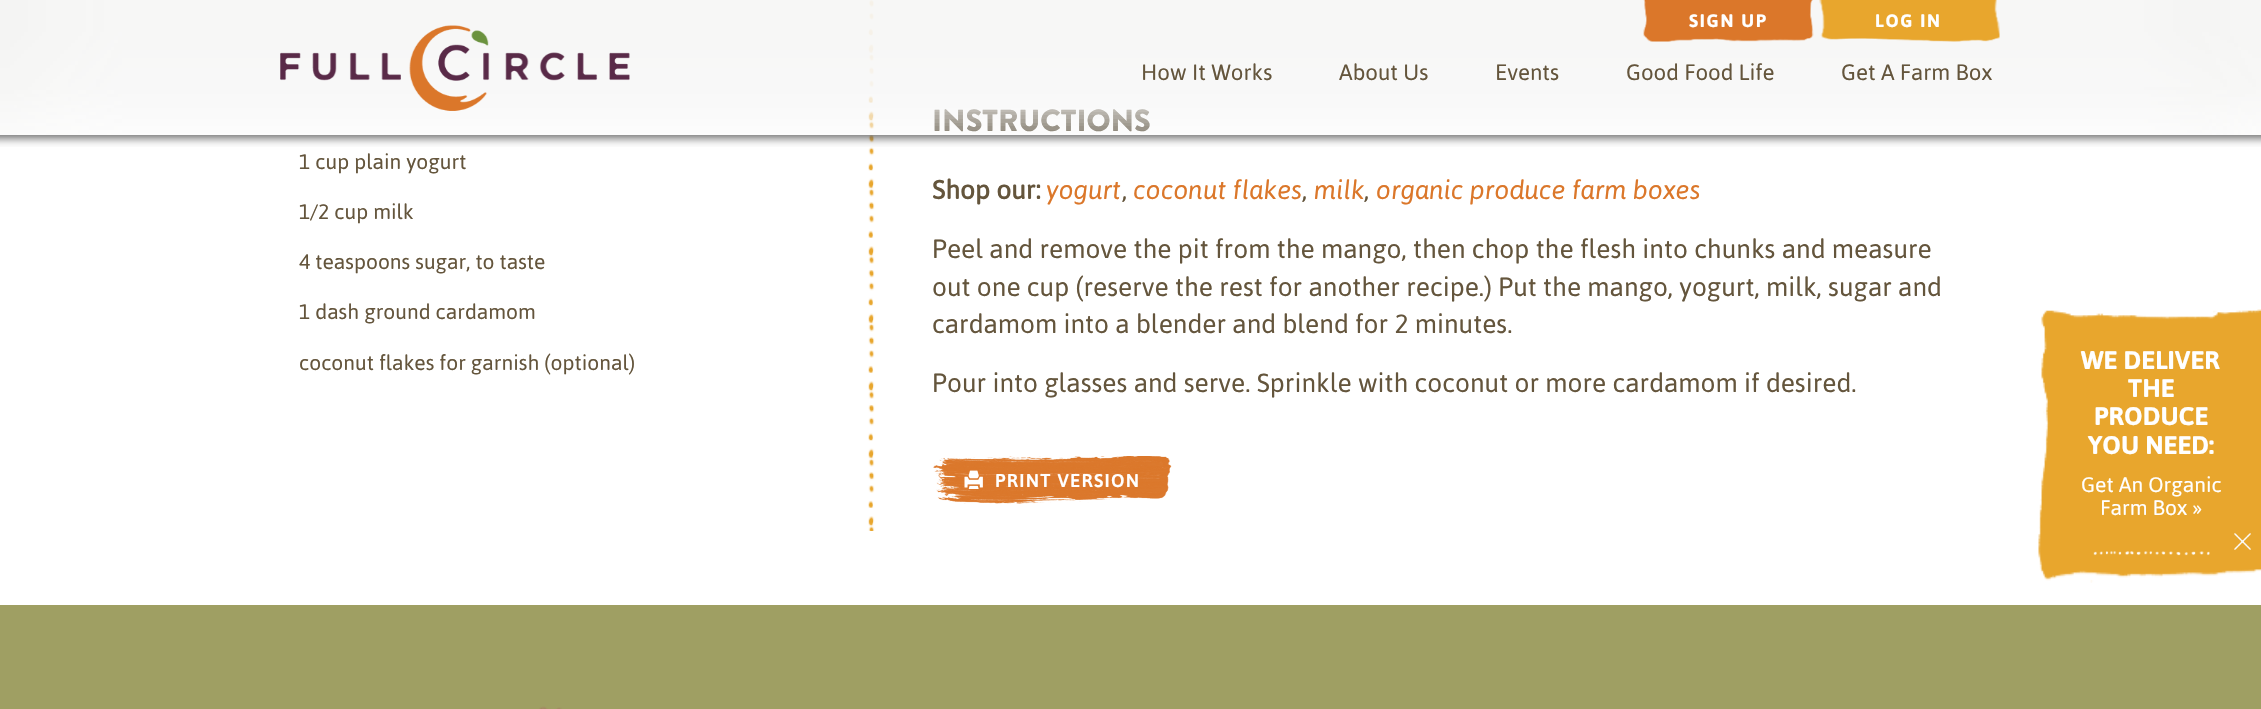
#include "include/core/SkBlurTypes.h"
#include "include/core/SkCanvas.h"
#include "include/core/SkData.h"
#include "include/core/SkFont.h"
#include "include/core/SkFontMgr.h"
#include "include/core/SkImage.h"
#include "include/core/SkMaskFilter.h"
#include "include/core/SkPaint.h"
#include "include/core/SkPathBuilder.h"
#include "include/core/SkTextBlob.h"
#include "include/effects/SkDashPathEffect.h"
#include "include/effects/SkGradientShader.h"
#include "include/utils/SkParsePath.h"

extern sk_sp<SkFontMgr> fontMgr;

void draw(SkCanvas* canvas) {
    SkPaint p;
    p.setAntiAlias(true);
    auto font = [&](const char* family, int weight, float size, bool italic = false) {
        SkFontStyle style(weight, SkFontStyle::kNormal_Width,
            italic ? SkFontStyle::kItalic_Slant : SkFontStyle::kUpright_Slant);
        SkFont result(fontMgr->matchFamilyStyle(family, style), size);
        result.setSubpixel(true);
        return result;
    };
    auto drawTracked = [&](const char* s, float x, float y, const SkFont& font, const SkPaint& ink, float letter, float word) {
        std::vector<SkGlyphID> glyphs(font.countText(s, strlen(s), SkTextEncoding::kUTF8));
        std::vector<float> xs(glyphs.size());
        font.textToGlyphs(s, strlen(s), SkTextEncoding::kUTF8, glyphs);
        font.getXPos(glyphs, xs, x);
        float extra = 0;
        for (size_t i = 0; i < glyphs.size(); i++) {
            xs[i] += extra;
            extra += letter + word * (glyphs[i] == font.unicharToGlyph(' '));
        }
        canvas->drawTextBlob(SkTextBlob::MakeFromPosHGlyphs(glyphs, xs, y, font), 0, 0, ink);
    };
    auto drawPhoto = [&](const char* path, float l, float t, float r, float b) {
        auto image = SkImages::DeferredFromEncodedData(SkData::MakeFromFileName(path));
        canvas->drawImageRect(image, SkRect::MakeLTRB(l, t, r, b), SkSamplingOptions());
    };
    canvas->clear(0xFFFFFFFF);
    drawPhoto("media/5.png", 868, 0, 875, 531);
    canvas->save();
    canvas->clipRect(SkRect::MakeLTRB(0, 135, 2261, 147));
    p.setColor(0xFF666666);
    p.setMaskFilter(SkMaskFilter::MakeBlur(kNormal_SkBlurStyle, 4.5f));
    canvas->drawRect(SkRect::MakeLTRB(-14, 3, 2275, 138), p);
    p.setMaskFilter(nullptr);
    canvas->restore();
    auto font1 = font("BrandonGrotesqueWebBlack", 400, 30.5f);
    p.setColor(0xFF362B13);
    canvas->drawString("INSTRUCTIONS", 932, 131, font1, p);
    drawPhoto("media/1.png", 0, 0, 2261, 135);
    drawPhoto("media/2.png", 1643, 0, 1814, 42);
    auto font2 = font("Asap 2", 700, 18);
    p.setColor(0xFFFFFFFF);
    drawTracked("SIGN UP", 1689, 27, font2, p, 1.75f, 0);
    drawPhoto("media/3.png", 1819, 0, 2000, 42);
    drawTracked("LOG IN", 1875, 27, font2, p, 1.75f, 0);
    drawPhoto("media/4.png", 280, 25, 630, 111);
    auto font3 = font("Asap", 400, 22.25f);
    p.setColor(0xFF64553C);
    {
        const struct { const char* s; float x, y; } items[] = {
            {"How It Works", 1141, 80},
            {"About Us", 1339, 80},
            {"Events", 1495, 80},
            {"Good Food Life", 1626, 80},
            {"Get A Farm Box", 1841, 80},
        };
        for (auto [s, x, y] : items) {
            canvas->drawString(s, x, y, font3, p);
        }
    }
    auto font4 = font("Asap", 400, 21);
    {
        const struct { const char* s; float x, y; } items[] = {
            {"1 cup plain yogurt", 299, 169},
            {"1/2 cup milk", 299, 219},
            {"4 teaspoons sugar, to taste", 299, 269},
            {"1 dash ground cardamom", 299, 319},
            {"coconut flakes for garnish (optional)", 299, 370},
        };
        for (auto [s, x, y] : items) {
            canvas->drawString(s, x, y, font4, p);
        }
    }
    auto font5 = font("Asap", 700, 26.25f);
    canvas->drawString("Shop our:", 932, 199, font5, p);
    auto font6 = font("Asap", 400, 26.25f, true);
    p.setColor(0xFFDB772A);
    canvas->drawString("yogurt", 1046, 199, font6, p);
    auto font7 = font("Asap", 400, 26.25f);
    p.setColor(0xFF64553C);
    canvas->drawString(",", 1122, 199, font7, p);
    p.setColor(0xFFDB772A);
    canvas->drawString("coconut flakes", 1133, 199, font6, p);
    p.setColor(0xFF64553C);
    canvas->drawString(",", 1302, 199, font7, p);
    p.setColor(0xFFDB772A);
    canvas->drawString("milk", 1314, 199, font6, p);
    p.setColor(0xFF64553C);
    canvas->drawString(",", 1364, 199, font7, p);
    p.setColor(0xFFDB772A);
    canvas->drawString("organic produce farm boxes", 1376, 199, font6, p);
    p.setColor(0xFF64553C);
    {
        const struct { const char* s; float x, y; } items[] = {
            {"Peel and remove the pit from the mango, then chop the flesh into chunks and measure", 932, 258},
            {"out one cup (reserve the rest for another recipe.) Put the mango, yogurt, milk, sugar and", 932, 296},
            {"cardamom into a blender and blend for 2 minutes.", 932, 333},
            {"Pour into glasses and serve. Sprinkle with coconut or more cardamom if desired.", 932, 392},
        };
        for (auto [s, x, y] : items) {
            canvas->drawString(s, x, y, font7, p);
        }
    }
    drawPhoto("media/6.png", 933, 456, 1172, 504);
    drawPhoto("media/7.png", 964, 470, 983, 489);
    auto font8 = font("Asap", 500, 18.5f);
    p.setColor(0xFFFFFFFF);
    drawTracked("PRINT VERSION", 995, 487, font8, p, 1.25f, 0);
    drawPhoto("media/8.png", 2038, 309, 2261, 583);
    auto font9 = font("Asap 2", 700, 25.5f);
    {
        const struct { const char* s; float x, y; } items[] = {
            {"WE DELIVER", 2081, 369},
            {"THE", 2128, 397},
            {"PRODUCE", 2094, 425},
            {"YOU NEED:", 2088, 454},
        };
        for (auto [s, x, y] : items) {
            canvas->drawString(s, x, y, font9, p);
        }
    }
    canvas->drawString("Get An Organic", 2081, 492, font4, p);
    canvas->drawString("Farm Box »", 2100, 515, font4, p);
    drawPhoto("media/9.png", 2093, 551, 2210, 556);
    drawPhoto("media/10.png", 2234, 533, 2251, 550);
    p.setColor(0xFF9F9F63);
    canvas->drawRect(SkRect::MakeLTRB(0, 605, 2261, 709), p);
    drawPhoto("media/11.png", 539, 706, 562, 709);
}
